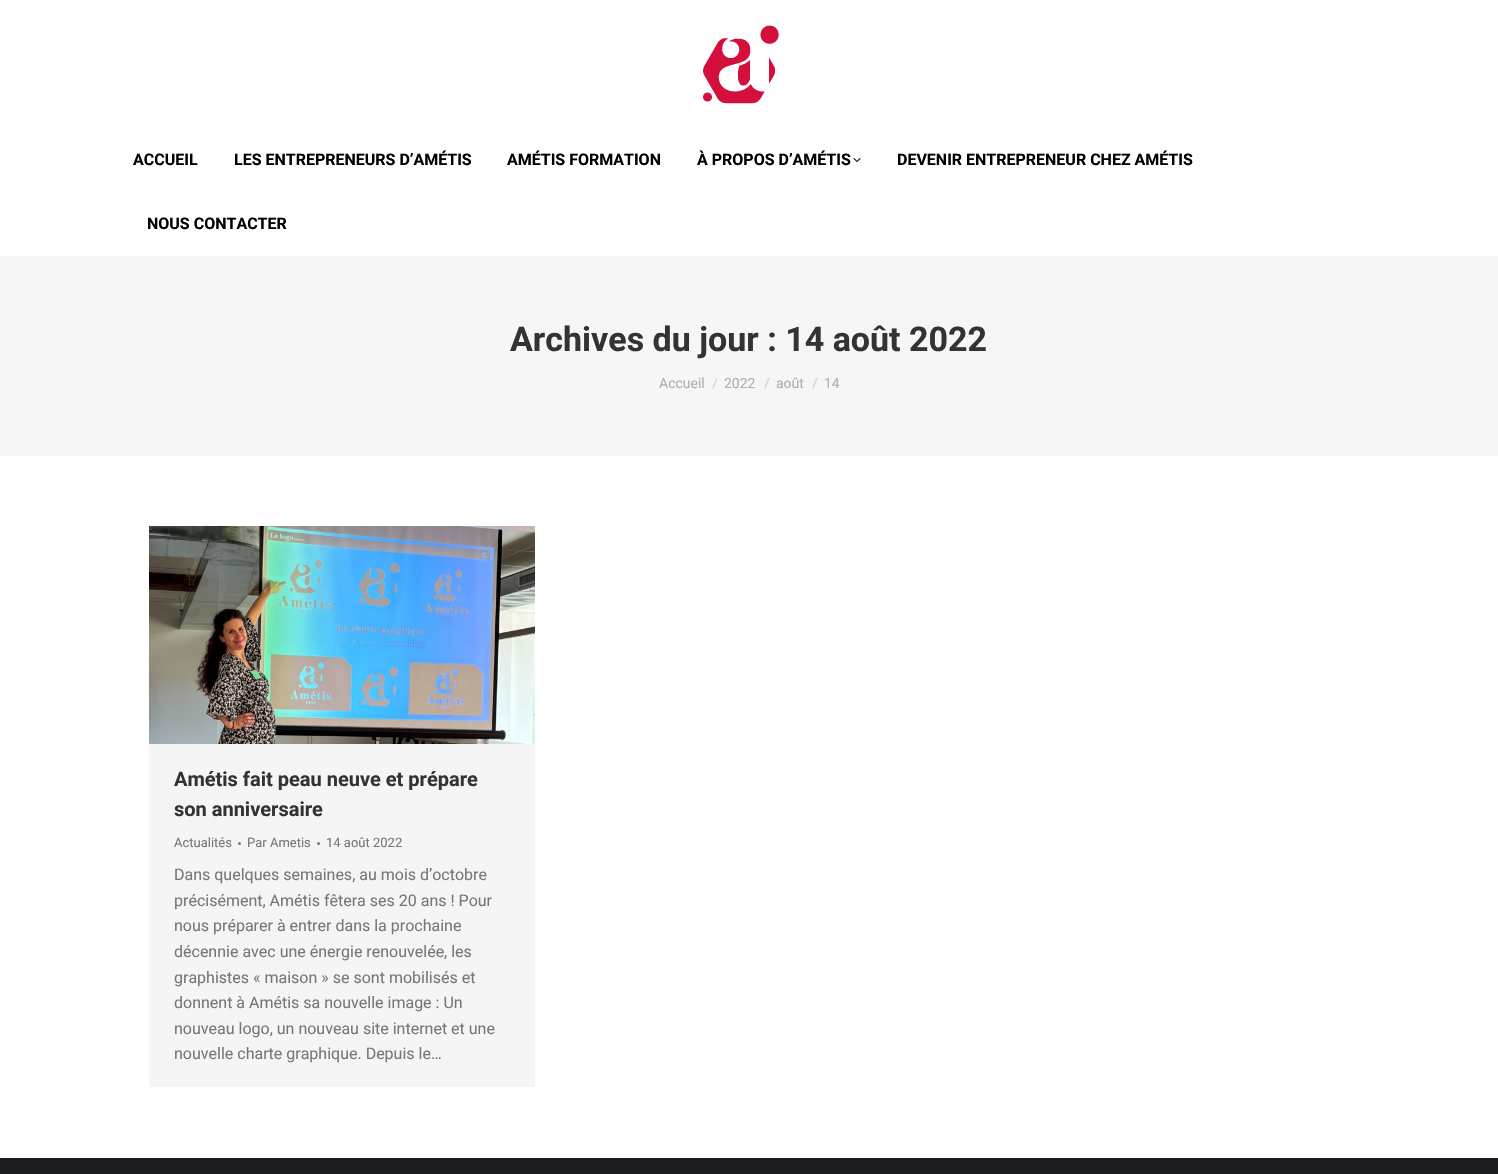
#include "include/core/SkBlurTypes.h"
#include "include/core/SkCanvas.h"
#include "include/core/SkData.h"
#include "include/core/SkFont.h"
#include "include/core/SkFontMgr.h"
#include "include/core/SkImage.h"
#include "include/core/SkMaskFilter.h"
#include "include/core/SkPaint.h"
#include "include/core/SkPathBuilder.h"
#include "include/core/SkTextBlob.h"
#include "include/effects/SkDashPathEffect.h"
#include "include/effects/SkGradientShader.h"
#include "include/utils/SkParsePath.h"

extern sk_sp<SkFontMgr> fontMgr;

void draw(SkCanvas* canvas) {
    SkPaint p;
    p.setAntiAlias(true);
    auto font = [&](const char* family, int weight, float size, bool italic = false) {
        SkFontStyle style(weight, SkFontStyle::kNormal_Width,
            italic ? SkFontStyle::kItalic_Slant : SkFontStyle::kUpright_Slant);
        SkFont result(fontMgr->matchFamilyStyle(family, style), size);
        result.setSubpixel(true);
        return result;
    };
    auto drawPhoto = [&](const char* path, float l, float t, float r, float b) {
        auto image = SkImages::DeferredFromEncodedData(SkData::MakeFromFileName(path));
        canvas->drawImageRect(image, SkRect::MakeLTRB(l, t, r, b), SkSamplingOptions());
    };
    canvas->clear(0xFFFFFFFF);
    drawPhoto("media/1.png", 703, 25, 779, 104);
    auto font1 = font("Roboto", 700, 16);
    p.setColor(0xFF000000);
    {
        const struct { const char* s; float x, y; } items[] = {
            {"ACCUEIL", 133, 165},
            {"LES ENTREPRENEURS D’AMÉTIS", 234, 165},
            {"AMÉTIS FORMATION", 507, 165},
            {"À PROPOS D’AMÉTIS", 697, 165},
        };
        for (auto [s, x, y] : items) {
            canvas->drawString(s, x, y, font1, p);
        }
    }
    drawPhoto("media/2.png", 853, 158, 861, 162);
    canvas->drawString("DEVENIR ENTREPRENEUR CHEZ AMÉTIS", 897, 165, font1, p);
    canvas->drawString("NOUS CONTACTER", 147, 229, font1, p);
    p.setColor(0xFFF6F6F6);
    canvas->drawRect(SkRect::MakeLTRB(0, 256, 1498, 456), p);
    auto font2 = font("Roboto", 700, 34);
    p.setColor(0xFF333333);
    canvas->drawString("Archives du jour : 14 août 2022", 510, 351, font2, p);
    auto font3 = font("Roboto", 400, 14);
    p.setColor(0xFFADAFB3);
    canvas->drawString("Accueil", 659, 388, font3, p);
    p.setColor(0xFFD2D3D5);
    canvas->drawString("/", 712, 388, font3, p);
    p.setColor(0xFFADAFB3);
    canvas->drawString("2022", 724, 388, font3, p);
    p.setColor(0xFFD2D3D5);
    canvas->drawString("/", 764, 388, font3, p);
    p.setColor(0xFFADAFB3);
    canvas->drawString("août", 776, 388, font3, p);
    p.setColor(0xFFD2D3D5);
    canvas->drawString("/", 812, 388, font3, p);
    p.setColor(0xFFADAFB3);
    canvas->drawString("14", 824, 388, font3, p);
    p.setColor(0xFFF5F5F5);
    canvas->drawRect(SkRect::MakeLTRB(149, 744, 535, 1087), p);
    drawPhoto("media/3.png", 149, 526, 535, 744);
    auto font4 = font("Roboto", 700, 20);
    p.setColor(0xFF333333);
    canvas->drawString("Amétis fait peau neuve et prépare", 174, 786, font4, p);
    canvas->drawString("son anniversaire", 174, 816, font4, p);
    auto font5 = font("Roboto", 400, 13);
    p.setColor(0xFF777777);
    canvas->drawString("Actualités", 174, 847, font5, p);
    canvas->drawCircle(239.5f, 843.5f, 1.5f, p);
    canvas->drawString("Par Ametis", 247, 847, font5, p);
    canvas->drawCircle(318.5f, 843.5f, 1.5f, p);
    canvas->drawString("14 août 2022", 326, 847, font5, p);
    auto font6 = font("Roboto", 400, 16);
    {
        const struct { const char* s; float x, y; } items[] = {
            {"Dans quelques semaines, au mois d’octobre", 174, 880},
            {"précisément, Amétis fêtera ses 20 ans ! Pour", 174, 906},
            {"nous préparer à entrer dans la prochaine", 174, 931},
            {"décennie avec une énergie renouvelée, les", 174, 957},
            {"graphistes « maison » se sont mobilisés et", 174, 983},
            {"donnent à Amétis sa nouvelle image : Un", 174, 1008},
            {"nouveau logo, un nouveau site internet et une", 174, 1034},
            {"nouvelle charte graphique. Depuis le…", 174, 1059},
        };
        for (auto [s, x, y] : items) {
            canvas->drawString(s, x, y, font6, p);
        }
    }
    p.setColor(0xFF1A1C20);
    canvas->drawRect(SkRect::MakeLTRB(0, 1158, 1498, 1174), p);
}
